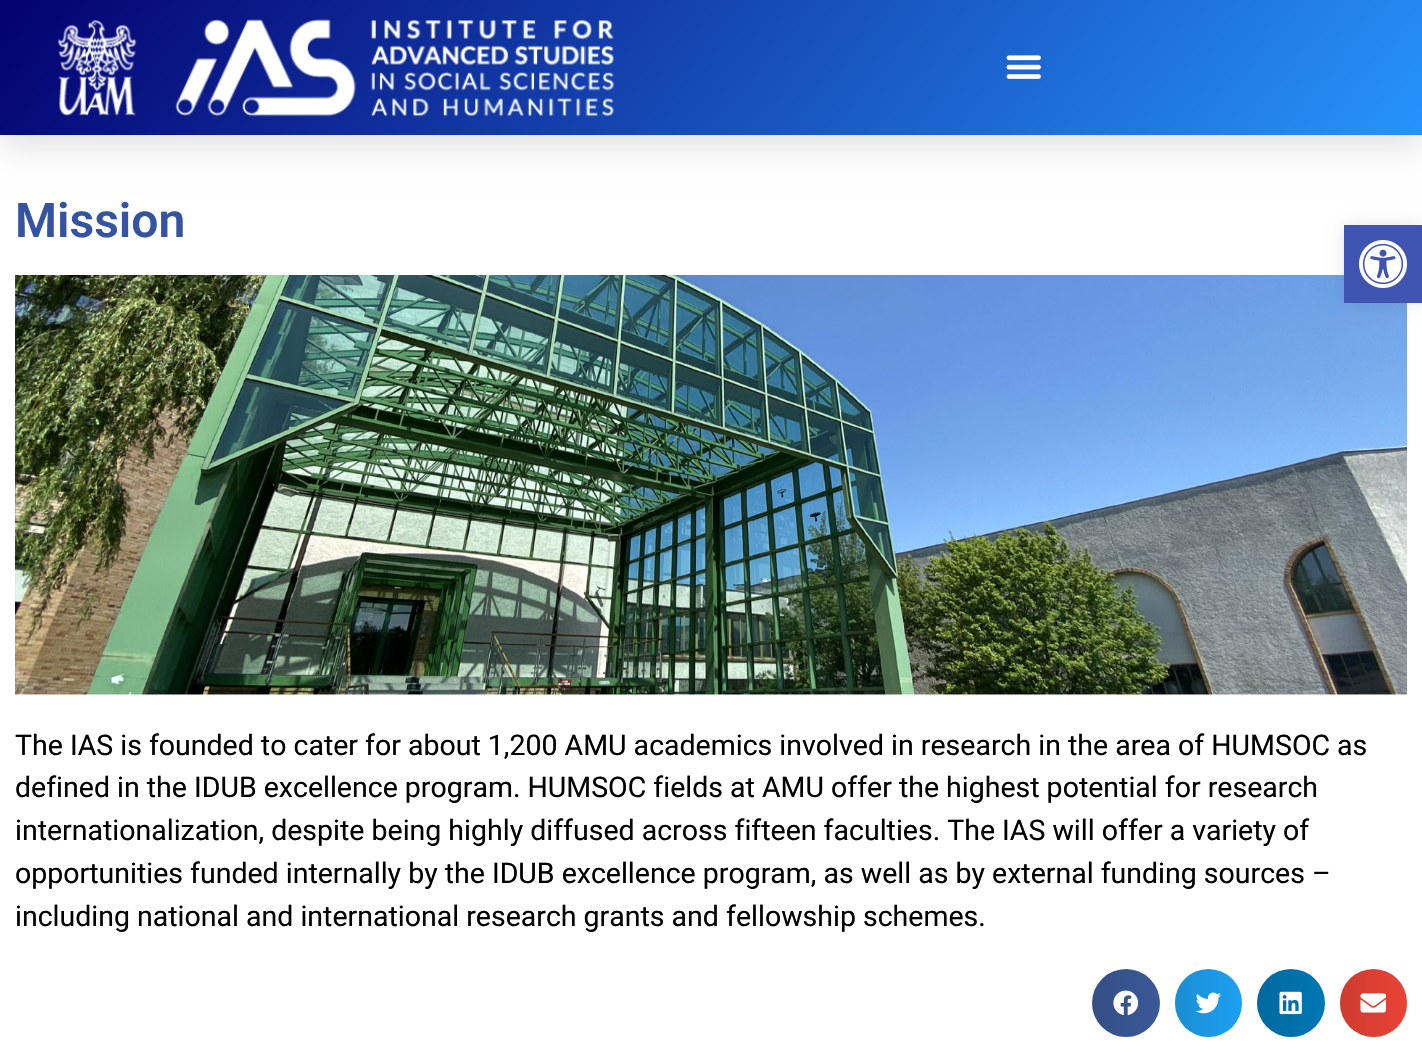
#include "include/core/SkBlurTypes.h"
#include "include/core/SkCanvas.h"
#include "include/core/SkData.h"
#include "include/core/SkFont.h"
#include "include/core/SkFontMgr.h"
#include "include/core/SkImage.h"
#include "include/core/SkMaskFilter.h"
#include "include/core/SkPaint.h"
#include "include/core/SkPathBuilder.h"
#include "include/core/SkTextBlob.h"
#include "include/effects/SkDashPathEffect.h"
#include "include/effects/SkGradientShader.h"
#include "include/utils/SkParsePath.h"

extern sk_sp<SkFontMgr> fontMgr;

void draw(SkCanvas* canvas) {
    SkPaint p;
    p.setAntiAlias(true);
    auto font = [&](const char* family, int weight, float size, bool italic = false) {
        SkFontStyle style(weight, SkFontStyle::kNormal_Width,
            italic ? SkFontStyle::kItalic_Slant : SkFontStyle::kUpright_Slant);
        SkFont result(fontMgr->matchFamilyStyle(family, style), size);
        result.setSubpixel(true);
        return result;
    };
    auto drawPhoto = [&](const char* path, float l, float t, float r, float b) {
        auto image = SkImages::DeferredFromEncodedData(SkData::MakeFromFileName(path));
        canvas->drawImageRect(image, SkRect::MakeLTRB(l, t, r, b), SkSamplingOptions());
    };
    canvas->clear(0xFFFFFFFF);
    p.setColor(0x1A000000);
    p.setMaskFilter(SkMaskFilter::MakeBlur(kNormal_SkBlurStyle, 15));
    canvas->drawRect(SkRect::MakeLTRB(0, 15, 1422, 150), p);
    p.setMaskFilter(nullptr);
    {
        const SkColor colors[] = {0xFF04006F, 0xFF2793FC};
        const float stops[] = {0, 1};
        const SkPoint ends[] = {{261, -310}, {1161, 445}};
        p.setShader(SkGradientShader::MakeLinear(ends, colors, stops, 2, SkTileMode::kClamp));
        p.setAlpha(255);
    }
    canvas->drawRect(SkRect::MakeLTRB(0, 0, 1422, 135), p);
    drawPhoto("media/1.png", 58, 19, 614, 117);
    drawPhoto("media/2.png", 1006, 55, 1041, 79);
    auto font1 = font("Roboto", 600, 48);
    p.setShader(nullptr);
    p.setColor(0xFF3454A1);
    canvas->drawString("Mission", 15, 237, font1, p);
    drawPhoto("media/3.png", 15, 275, 1407, 695);
    auto font2 = font("Roboto", 400, 28.5f);
    p.setColor(0xFF000000);
    {
        const struct { const char* s; float x, y; } items[] = {
            {"The IAS is founded to cater for about 1,200 AMU academics involved in research in the area of HUMSOC as", 15, 755},
            {"defined in the IDUB excellence program. HUMSOC fields at AMU offer the highest potential for research", 15, 797},
            {"internationalization, despite being highly diffused across fifteen faculties. The IAS will offer a variety of", 15, 840},
            {"opportunities funded internally by the IDUB excellence program, as well as by external funding sources –", 15, 883},
            {"including national and international research grants and fellowship schemes.", 15, 926},
        };
        for (auto [s, x, y] : items) {
            canvas->drawString(s, x, y, font2, p);
        }
    }
    p.setColor(0xFF3B5998);
    canvas->drawCircle(1126, 1003, 34, p);
    {
        const SkColor colors[] = {0x1F000000, 0x00000000};
        const float stops[] = {0, 1};
        const SkPoint ends[] = {{1092, 1003}, {1160, 1003}};
        p.setShader(SkGradientShader::MakeLinear(ends, colors, stops, 2, SkTileMode::kClamp));
        p.setAlpha(255);
    }
    canvas->drawCircle(1126, 1003, 34, p);
    drawPhoto("media/4.png", 1113, 990, 1139, 1016);
    p.setShader(nullptr);
    p.setColor(0xFF1DA1F2);
    canvas->drawRoundRect(SkRect::MakeLTRB(1175, 969, 1242, 1037), 33.5f, 33.5f, p);
    {
        const SkColor colors[] = {0x1F000000, 0x00000000};
        const float stops[] = {0, 1};
        const SkPoint ends[] = {{1175, 1003}, {1242, 1003}};
        p.setShader(SkGradientShader::MakeLinear(ends, colors, stops, 2, SkTileMode::kClamp));
        p.setAlpha(255);
    }
    canvas->drawRoundRect(SkRect::MakeLTRB(1175, 969, 1242, 1037), 33.5f, 33.5f, p);
    drawPhoto("media/5.png", 1195, 992, 1221, 1014);
    p.setShader(nullptr);
    p.setColor(0xFF0077B5);
    canvas->drawCircle(1291, 1003, 34, p);
    {
        const SkColor colors[] = {0x1F000000, 0x00000000};
        const float stops[] = {0, 1};
        const SkPoint ends[] = {{1257, 1003}, {1325, 1003}};
        p.setShader(SkGradientShader::MakeLinear(ends, colors, stops, 2, SkTileMode::kClamp));
        p.setAlpha(255);
    }
    canvas->drawCircle(1291, 1003, 34, p);
    drawPhoto("media/6.png", 1279, 991, 1302, 1015);
    p.setShader(nullptr);
    p.setColor(0xFFEA4335);
    canvas->drawRoundRect(SkRect::MakeLTRB(1340, 969, 1407, 1037), 33.5f, 33.5f, p);
    {
        const SkColor colors[] = {0x1F000000, 0x00000000};
        const float stops[] = {0, 1};
        const SkPoint ends[] = {{1340, 1003}, {1407, 1003}};
        p.setShader(SkGradientShader::MakeLinear(ends, colors, stops, 2, SkTileMode::kClamp));
        p.setAlpha(255);
    }
    canvas->drawRoundRect(SkRect::MakeLTRB(1340, 969, 1407, 1037), 33.5f, 33.5f, p);
    drawPhoto("media/7.png", 1360, 993, 1386, 1013);
    p.setShader(nullptr);
    p.setColor(0x1A000000);
    p.setMaskFilter(SkMaskFilter::MakeBlur(kNormal_SkBlurStyle, 7.5f));
    canvas->drawRect(SkRect::MakeLTRB(1344, 225, 1422, 303), p);
    p.setMaskFilter(nullptr);
    p.setColor(0xFF4054B2);
    canvas->drawRect(SkRect::MakeLTRB(1344, 225, 1422, 303), p);
    drawPhoto("media/8.png", 1359, 240, 1407, 288);
}
